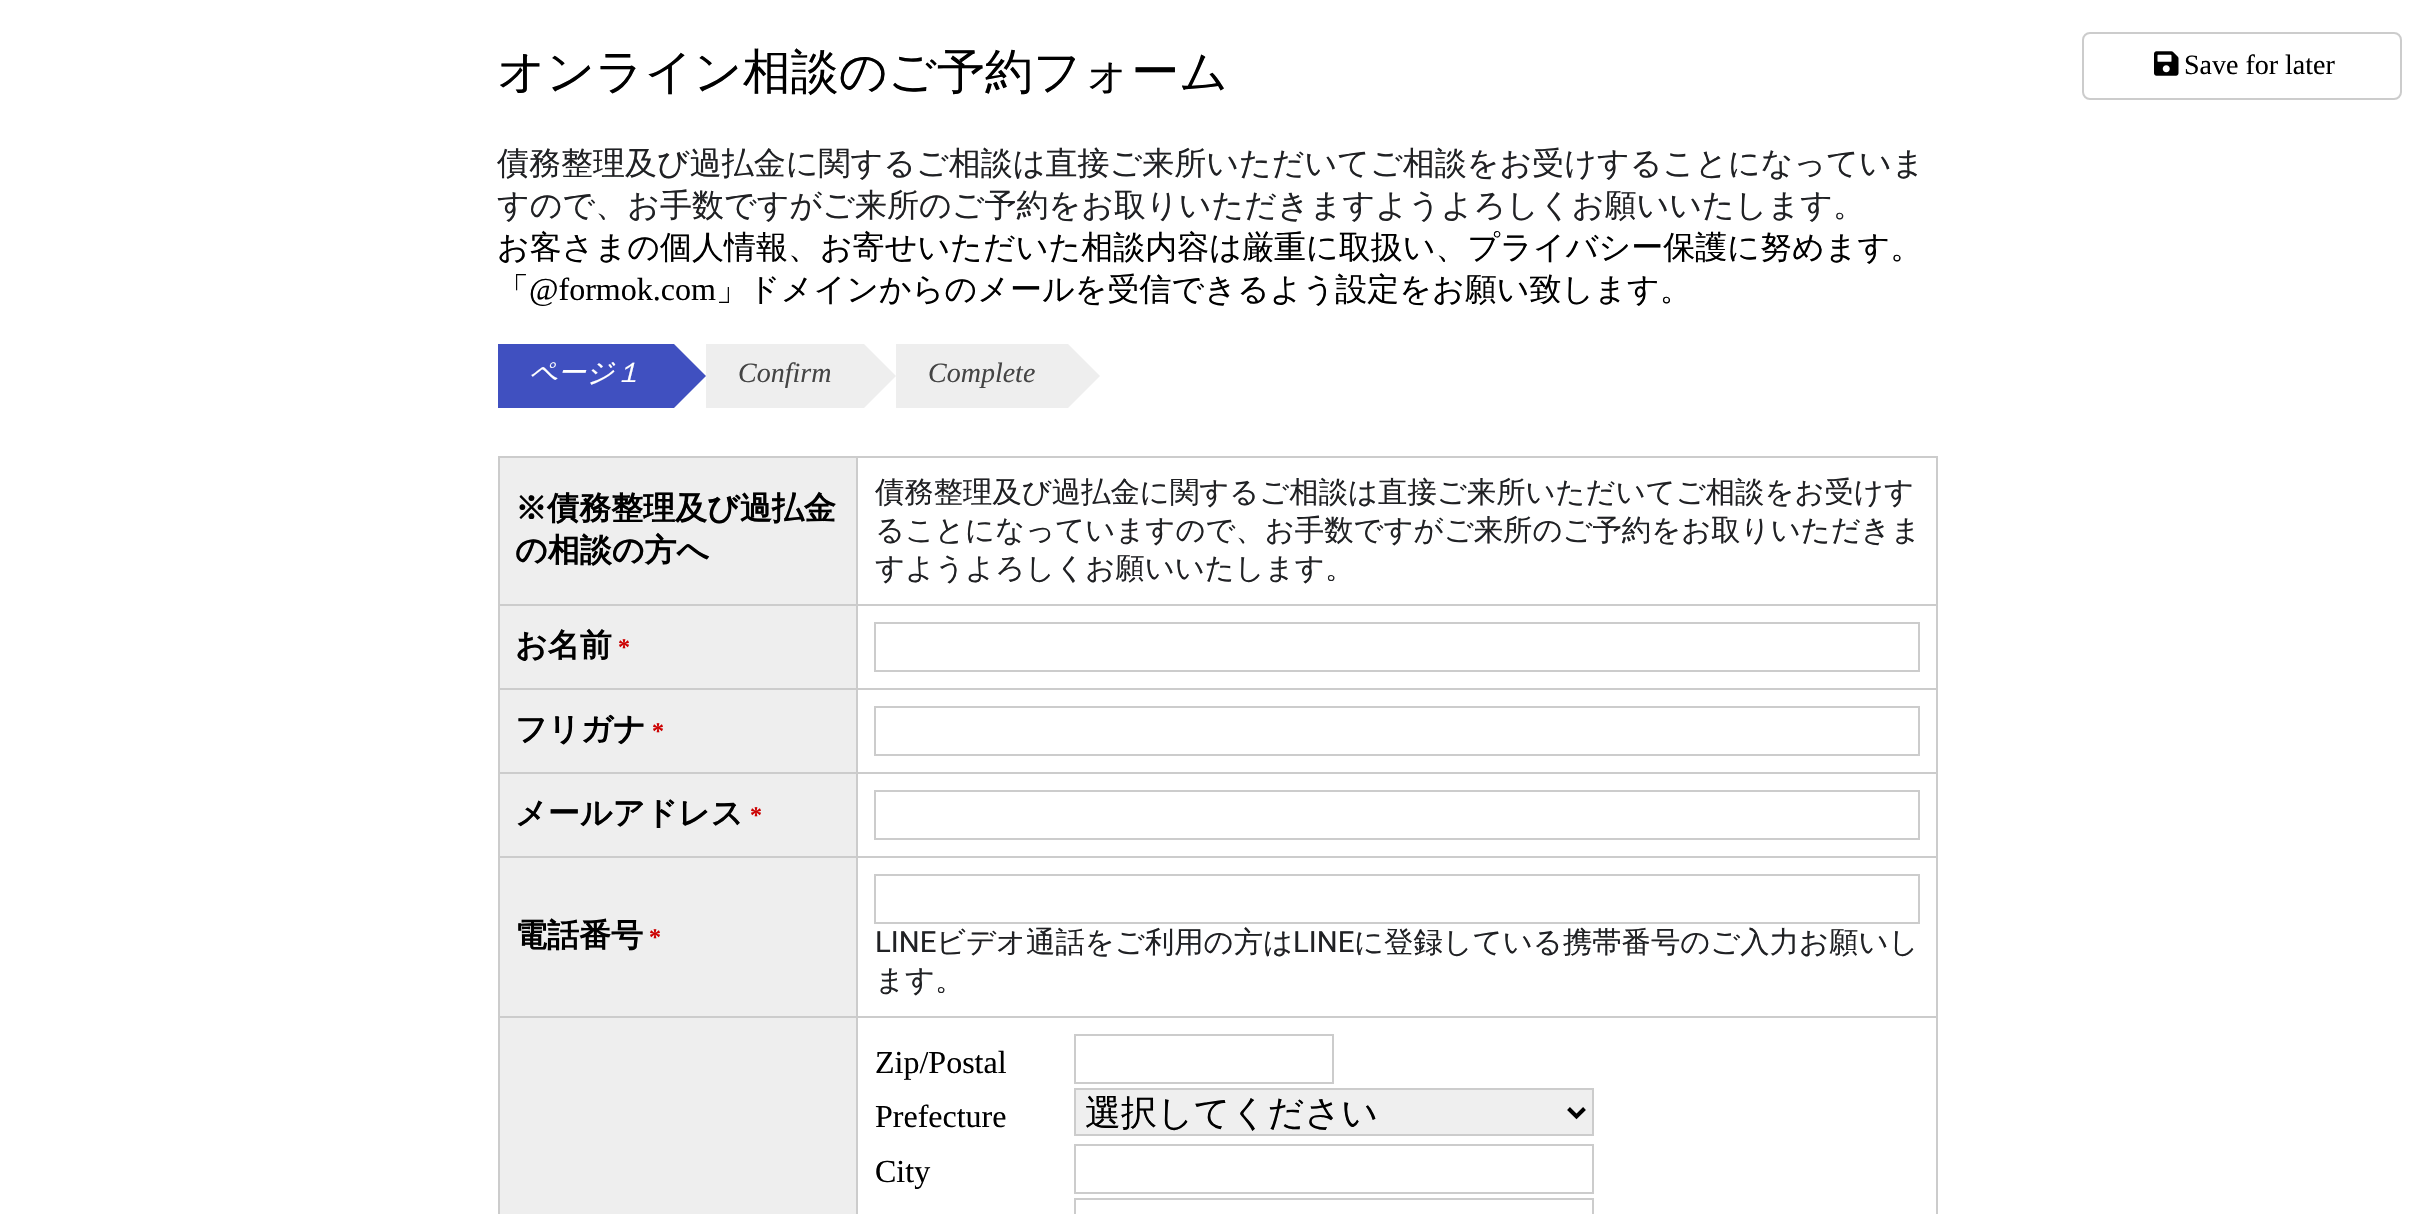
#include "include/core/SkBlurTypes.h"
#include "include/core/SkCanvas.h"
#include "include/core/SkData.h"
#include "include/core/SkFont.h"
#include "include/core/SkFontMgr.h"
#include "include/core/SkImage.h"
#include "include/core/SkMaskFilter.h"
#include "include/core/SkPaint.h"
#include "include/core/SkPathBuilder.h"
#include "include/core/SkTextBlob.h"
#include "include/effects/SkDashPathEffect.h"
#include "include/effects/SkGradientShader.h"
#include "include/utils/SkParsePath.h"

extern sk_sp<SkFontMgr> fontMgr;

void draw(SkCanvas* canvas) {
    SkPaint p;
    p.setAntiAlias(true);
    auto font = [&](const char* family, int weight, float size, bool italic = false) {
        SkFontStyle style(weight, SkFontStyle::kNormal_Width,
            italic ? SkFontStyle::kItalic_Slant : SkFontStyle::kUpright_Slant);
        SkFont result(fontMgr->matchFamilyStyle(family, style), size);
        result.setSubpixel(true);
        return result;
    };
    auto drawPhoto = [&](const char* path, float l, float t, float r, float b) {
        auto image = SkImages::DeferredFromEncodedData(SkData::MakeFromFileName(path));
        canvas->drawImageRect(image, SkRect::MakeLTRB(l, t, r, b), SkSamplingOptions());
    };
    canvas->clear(0xFFFFFFFF);
    auto font1 = font("WenQuanYi Zen Hei", 500, 48);
    p.setColor(0xFF000000);
    canvas->drawString("オンライン相談のご予約フォーム", 497, 88, font1, p);
    auto font2 = font("WenQuanYi Zen Hei", 500, 32);
    p.setColor(0xFF202124);
    canvas->drawString("債務整理及び過払金に関するご相談は直接ご来所いただいてご相談をお受けすることになっていま", 497, 174, font2, p);
    canvas->drawString("すので、お手数ですがご来所のご予約をお取りいただきますようよろしくお願いいたします。", 497, 216, font2, p);
    p.setColor(0xFF000000);
    canvas->drawString("お客さまの個人情報、お寄せいただいた相談内容は厳重に取扱い、プライバシー保護に努めます。", 497, 258, font2, p);
    canvas->drawString("「", 497, 300, font2, p);
    auto font3 = font("Liberation Serif", 400, 32);
    canvas->drawString("@formok.com", 529, 300, font3, p);
    canvas->drawString("」ドメインからのメールを受信できるよう設定をお願い致します。", 716, 300, font2, p);
    p.setColor(0xFF4050C0);
    canvas->drawRect(SkRect::MakeLTRB(498, 344, 674, 408), p);
    auto font4 = font("WenQuanYi Zen Hei", 500, 28, true);
    p.setColor(0xFFFFFFFF);
    canvas->drawString("ページ１", 529, 382, font4, p);
    p.setColor(0xFF4050C0);
    canvas->drawPath(SkPathBuilder().moveTo(674, 408).lineTo(674, 344).lineTo(706, 376).close().detach(), p);
    p.setColor(0xFFEEEEEE);
    canvas->drawRect(SkRect::MakeLTRB(706, 344, 864, 408), p);
    auto font5 = font("Liberation Serif", 400, 28, true);
    p.setColor(0xFF444444);
    canvas->drawString("Confirm", 738, 382, font5, p);
    p.setColor(0xFFEEEEEE);
    canvas->drawPath(SkPathBuilder().moveTo(864, 408).lineTo(864, 344).lineTo(896, 376).close().detach(), p);
    canvas->drawRect(SkRect::MakeLTRB(896, 344, 1068, 408), p);
    p.setColor(0xFF444444);
    canvas->drawString("Complete", 928, 382, font5, p);
    p.setColor(0xFFEEEEEE);
    canvas->drawPath(SkPathBuilder().moveTo(1068, 408).lineTo(1068, 344).lineTo(1100, 376).close().detach(), p);
    {
        const struct { float l, t, r, b; SkColor color; } items[] = {
            {500, 458, 856, 604, 0xFFEEEEEE},
            {856, 456, 1938, 458, 0xFFCCCCCC},
            {856, 604, 1938, 606, 0xFFCCCCCC},
            {856, 688, 1938, 690, 0xFFCCCCCC},
            {856, 772, 1938, 774, 0xFFCCCCCC},
            {856, 856, 1938, 858, 0xFFCCCCCC},
            {856, 1016, 1938, 1018, 0xFFCCCCCC},
            {856, 1016, 858, 1214, 0xFFCCCCCC},
            {498, 1016, 858, 1018, 0xFFCCCCCC},
            {856, 856, 858, 1018, 0xFFCCCCCC},
            {498, 856, 858, 858, 0xFFCCCCCC},
            {856, 772, 858, 858, 0xFFCCCCCC},
            {498, 772, 858, 774, 0xFFCCCCCC},
            {856, 688, 858, 774, 0xFFCCCCCC},
            {498, 688, 858, 690, 0xFFCCCCCC},
            {856, 604, 858, 690, 0xFFCCCCCC},
            {498, 604, 858, 606, 0xFFCCCCCC},
            {856, 456, 858, 606, 0xFFCCCCCC},
            {498, 456, 858, 458, 0xFFCCCCCC},
            {498, 1016, 500, 1214, 0xFFCCCCCC},
            {498, 856, 500, 1018, 0xFFCCCCCC},
            {498, 772, 500, 858, 0xFFCCCCCC},
            {498, 688, 500, 774, 0xFFCCCCCC},
            {498, 604, 500, 690, 0xFFCCCCCC},
            {498, 456, 500, 606, 0xFFCCCCCC},
        };
        for (auto [l, t, r, b, color] : items) {
            p.setColor(color);
            canvas->drawRect(SkRect::MakeLTRB(l, t, r, b), p);
        }
    }
    auto font6 = font("WenQuanYi Zen Hei", 700, 32);
    p.setColor(0xFF000000);
    canvas->drawString("※債務整理及び過払金", 515, 519, font6, p);
    canvas->drawString("の相談の方へ", 515, 561, font6, p);
    {
        const struct { float l, t, r, b; SkColor color; } items[] = {
            {1936, 1016, 1938, 1214, 0xFFCCCCCC},
            {1936, 856, 1938, 1018, 0xFFCCCCCC},
            {1936, 772, 1938, 858, 0xFFCCCCCC},
            {1936, 688, 1938, 774, 0xFFCCCCCC},
            {1936, 604, 1938, 690, 0xFFCCCCCC},
            {1936, 456, 1938, 606, 0xFFCCCCCC},
        };
        for (auto [l, t, r, b, color] : items) {
            p.setColor(color);
            canvas->drawRect(SkRect::MakeLTRB(l, t, r, b), p);
        }
    }
    auto font7 = font("WenQuanYi Zen Hei", 500, 29.35f);
    p.setColor(0xFF202124);
    {
        const struct { const char* s; float x, y; } items[] = {
            {"債務整理及び過払金に関するご相談は直接ご来所いただいてご相談をお受けす", 875, 502},
            {"ることになっていますので、お手数ですがご来所のご予約をお取りいただきま", 875, 540},
            {"すようよろしくお願いいたします。", 875, 578},
        };
        for (auto [s, x, y] : items) {
            canvas->drawString(s, x, y, font7, p);
        }
    }
    p.setColor(0xFFEEEEEE);
    canvas->drawRect(SkRect::MakeLTRB(500, 606, 856, 688), p);
    p.setColor(0xFF000000);
    canvas->drawString("お名前", 515, 656, font6, p);
    auto font8 = font("Liberation Serif", 700, 24);
    p.setColor(0xFFCC0000);
    canvas->drawString("*", 618, 655, font8, p);
    p.setStyle(SkPaint::kStroke_Style);
    p.setStrokeWidth(2);
    p.setColor(0xFFCCCCCC);
    canvas->drawRect(SkRect::MakeLTRB(875, 623, 1919, 671), p);
    p.setStyle(SkPaint::kFill_Style);
    p.setColor(0xFFEEEEEE);
    canvas->drawRect(SkRect::MakeLTRB(500, 690, 856, 772), p);
    p.setColor(0xFF000000);
    canvas->drawString("フリガナ", 515, 740, font6, p);
    p.setColor(0xFFCC0000);
    canvas->drawString("*", 652, 739, font8, p);
    p.setStyle(SkPaint::kStroke_Style);
    p.setColor(0xFFCCCCCC);
    canvas->drawRect(SkRect::MakeLTRB(875, 707, 1919, 755), p);
    p.setStyle(SkPaint::kFill_Style);
    p.setColor(0xFFEEEEEE);
    canvas->drawRect(SkRect::MakeLTRB(500, 774, 856, 856), p);
    p.setColor(0xFF000000);
    canvas->drawString("メールアドレス", 515, 824, font6, p);
    p.setColor(0xFFCC0000);
    canvas->drawString("*", 750, 823, font8, p);
    p.setStyle(SkPaint::kStroke_Style);
    p.setColor(0xFFCCCCCC);
    canvas->drawRect(SkRect::MakeLTRB(875, 791, 1919, 839), p);
    p.setStyle(SkPaint::kFill_Style);
    p.setColor(0xFFEEEEEE);
    canvas->drawRect(SkRect::MakeLTRB(500, 858, 856, 1016), p);
    p.setColor(0xFF000000);
    canvas->drawString("電話番号", 515, 946, font6, p);
    p.setColor(0xFFCC0000);
    canvas->drawString("*", 649, 945, font8, p);
    p.setStyle(SkPaint::kStroke_Style);
    p.setColor(0xFFCCCCCC);
    canvas->drawRect(SkRect::MakeLTRB(875, 875, 1919, 923), p);
    auto font9 = font("Roboto", 400, 29.35f);
    p.setStyle(SkPaint::kFill_Style);
    p.setColor(0xFF202124);
    canvas->drawString("LINE", 875, 952, font9, p);
    canvas->drawString("ビデオ通話をご利用の方は", 936, 952, font7, p);
    canvas->drawString("LINE", 1293, 952, font9, p);
    canvas->drawString("に登録している携帯番号のご入力お願いし", 1354, 952, font7, p);
    canvas->drawString("ます。", 875, 990, font7, p);
    p.setColor(0xFFEEEEEE);
    canvas->drawRect(SkRect::MakeLTRB(500, 1018, 856, 1214), p);
    p.setColor(0xFF000000);
    canvas->drawString("Zip/Postal", 875, 1073, font3, p);
    p.setStyle(SkPaint::kStroke_Style);
    p.setColor(0xFFCCCCCC);
    canvas->drawRect(SkRect::MakeLTRB(1075, 1035, 1333, 1083), p);
    p.setStyle(SkPaint::kFill_Style);
    p.setColor(0xFF000000);
    canvas->drawString("Prefecture", 875, 1127, font3, p);
    p.setColor(0xFFEFEFEF);
    canvas->drawRect(SkRect::MakeLTRB(1075, 1089, 1593, 1135), p);
    p.setStyle(SkPaint::kStroke_Style);
    p.setColor(0xFFCCCCCC);
    canvas->drawRect(SkRect::MakeLTRB(1075, 1089, 1593, 1135), p);
    p.setStrokeWidth(4);
    p.setColor(0xFF000000);
    canvas->drawPath(SkPathBuilder().moveTo(1568.5f, 1108.5f).lineTo(1576.5f, 1116.5f).lineTo(1584.5f, 1108.5f).detach(), p);
    auto font10 = font("WenQuanYi Zen Hei", 500, 36);
    p.setStyle(SkPaint::kFill_Style);
    canvas->drawString("選択してください", 1085, 1125, font10, p);
    canvas->drawString("City", 875, 1182, font3, p);
    p.setStyle(SkPaint::kStroke_Style);
    p.setStrokeWidth(2);
    p.setColor(0xFFCCCCCC);
    canvas->drawRect(SkRect::MakeLTRB(1075, 1145, 1593, 1193), p);
    canvas->drawRect(SkRect::MakeLTRB(1075, 1199, 1593, 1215), p);
    canvas->drawRoundRect(SkRect::MakeLTRB(2083, 33, 2401, 99), 7, 7, p);
    drawPhoto("media/1.png", 2154, 51, 2179, 76);
    auto font11 = font("Liberation Serif", 400, 28);
    p.setStyle(SkPaint::kFill_Style);
    p.setColor(0xFF000000);
    canvas->drawString("Save for later", 2184, 74, font11, p);
}
